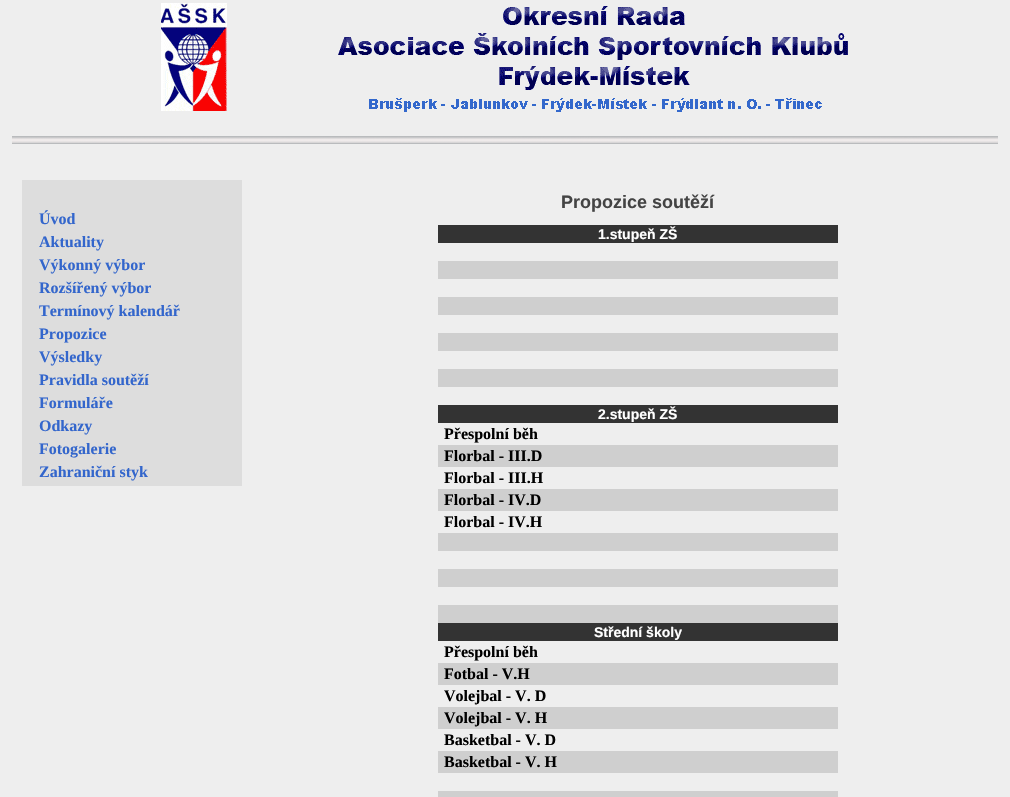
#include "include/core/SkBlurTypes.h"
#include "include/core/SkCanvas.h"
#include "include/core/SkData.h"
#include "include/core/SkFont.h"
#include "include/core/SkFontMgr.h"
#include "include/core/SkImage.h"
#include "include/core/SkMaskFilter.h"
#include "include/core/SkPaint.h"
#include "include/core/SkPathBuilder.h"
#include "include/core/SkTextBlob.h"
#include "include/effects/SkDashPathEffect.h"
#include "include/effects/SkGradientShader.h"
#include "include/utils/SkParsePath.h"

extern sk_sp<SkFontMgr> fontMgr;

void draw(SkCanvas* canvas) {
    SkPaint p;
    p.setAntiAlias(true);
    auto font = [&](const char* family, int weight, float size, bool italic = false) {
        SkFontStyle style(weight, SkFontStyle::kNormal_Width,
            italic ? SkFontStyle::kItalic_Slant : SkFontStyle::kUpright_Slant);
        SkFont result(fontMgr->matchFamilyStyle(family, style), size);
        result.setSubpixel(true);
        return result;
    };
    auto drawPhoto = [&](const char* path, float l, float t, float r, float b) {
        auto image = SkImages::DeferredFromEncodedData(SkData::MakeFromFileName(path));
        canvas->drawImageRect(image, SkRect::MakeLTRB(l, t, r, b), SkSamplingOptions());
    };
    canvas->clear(0xFFEEEEEE);
    drawPhoto("media/1.png", 161, 3, 848, 112);
    drawPhoto("media/2.png", 12, 136, 998, 144);
    p.setColor(0xFFDDDDDD);
    canvas->drawRect(SkRect::MakeLTRB(22, 180, 242, 486), p);
    auto font1 = font("Liberation Serif", 700, 16);
    p.setColor(0xFF3366CC);
    {
        const struct { const char* s; float x, y; } items[] = {
            {"Úvod", 39, 224},
            {"Aktuality", 39, 247},
            {"Výkonný výbor", 39, 270},
            {"Rozšířený výbor", 39, 293},
            {"Termínový kalendář", 39, 316},
            {"Propozice", 39, 339},
            {"Výsledky", 39, 362},
            {"Pravidla soutěží", 39, 385},
            {"Formuláře", 39, 408},
            {"Odkazy", 39, 431},
            {"Fotogalerie", 39, 454},
            {"Zahraniční styk", 39, 477},
        };
        for (auto [s, x, y] : items) {
            canvas->drawString(s, x, y, font1, p);
        }
    }
    auto font2 = font("Liberation Sans", 700, 18);
    p.setColor(0xFF444444);
    canvas->drawString("Propozice soutěží", 561, 208, font2, p);
    p.setColor(0xFF333333);
    canvas->drawRect(SkRect::MakeLTRB(438, 225, 838, 243), p);
    auto font3 = font("Liberation Sans", 700, 14);
    p.setColor(0xFFFFFFFF);
    canvas->drawString("1.stupeň ZŠ", 598, 239, font3, p);
    {
        const struct { float l, t, r, b; SkColor color; } items[] = {
            {438, 261, 838, 279, 0xFFCFCFCF},
            {438, 297, 838, 315, 0xFFCFCFCF},
            {438, 333, 838, 351, 0xFFCFCFCF},
            {438, 369, 838, 387, 0xFFCFCFCF},
            {438, 405, 838, 423, 0xFF333333},
        };
        for (auto [l, t, r, b, color] : items) {
            p.setColor(color);
            canvas->drawRect(SkRect::MakeLTRB(l, t, r, b), p);
        }
    }
    p.setColor(0xFFFFFFFF);
    canvas->drawString("2.stupeň ZŠ", 598, 419, font3, p);
    p.setColor(0xFF000000);
    canvas->drawString("Přespolní běh", 444, 439, font1, p);
    p.setColor(0xFFCFCFCF);
    canvas->drawRect(SkRect::MakeLTRB(438, 445, 838, 467), p);
    p.setColor(0xFF000000);
    canvas->drawString("Florbal - III.D", 444, 461, font1, p);
    canvas->drawString("Florbal - III.H", 444, 483, font1, p);
    p.setColor(0xFFCFCFCF);
    canvas->drawRect(SkRect::MakeLTRB(438, 489, 838, 511), p);
    p.setColor(0xFF000000);
    canvas->drawString("Florbal - IV.D", 444, 505, font1, p);
    canvas->drawString("Florbal - IV.H", 444, 527, font1, p);
    {
        const struct { float l, t, r, b; SkColor color; } items[] = {
            {438, 533, 838, 551, 0xFFCFCFCF},
            {438, 569, 838, 587, 0xFFCFCFCF},
            {438, 605, 838, 623, 0xFFCFCFCF},
            {438, 623, 838, 641, 0xFF333333},
        };
        for (auto [l, t, r, b, color] : items) {
            p.setColor(color);
            canvas->drawRect(SkRect::MakeLTRB(l, t, r, b), p);
        }
    }
    p.setColor(0xFFFFFFFF);
    canvas->drawString("Střední školy", 594, 637, font3, p);
    p.setColor(0xFF000000);
    canvas->drawString("Přespolní běh", 444, 657, font1, p);
    p.setColor(0xFFCFCFCF);
    canvas->drawRect(SkRect::MakeLTRB(438, 663, 838, 685), p);
    p.setColor(0xFF000000);
    canvas->drawString("Fotbal - V.H", 444, 679, font1, p);
    canvas->drawString("Volejbal - V. D", 444, 701, font1, p);
    p.setColor(0xFFCFCFCF);
    canvas->drawRect(SkRect::MakeLTRB(438, 707, 838, 729), p);
    p.setColor(0xFF000000);
    canvas->drawString("Volejbal - V. H", 444, 723, font1, p);
    canvas->drawString("Basketbal - V. D", 444, 745, font1, p);
    p.setColor(0xFFCFCFCF);
    canvas->drawRect(SkRect::MakeLTRB(438, 751, 838, 773), p);
    p.setColor(0xFF000000);
    canvas->drawString("Basketbal - V. H", 444, 767, font1, p);
    p.setColor(0xFFCFCFCF);
    canvas->drawRect(SkRect::MakeLTRB(438, 791, 838, 797), p);
}
